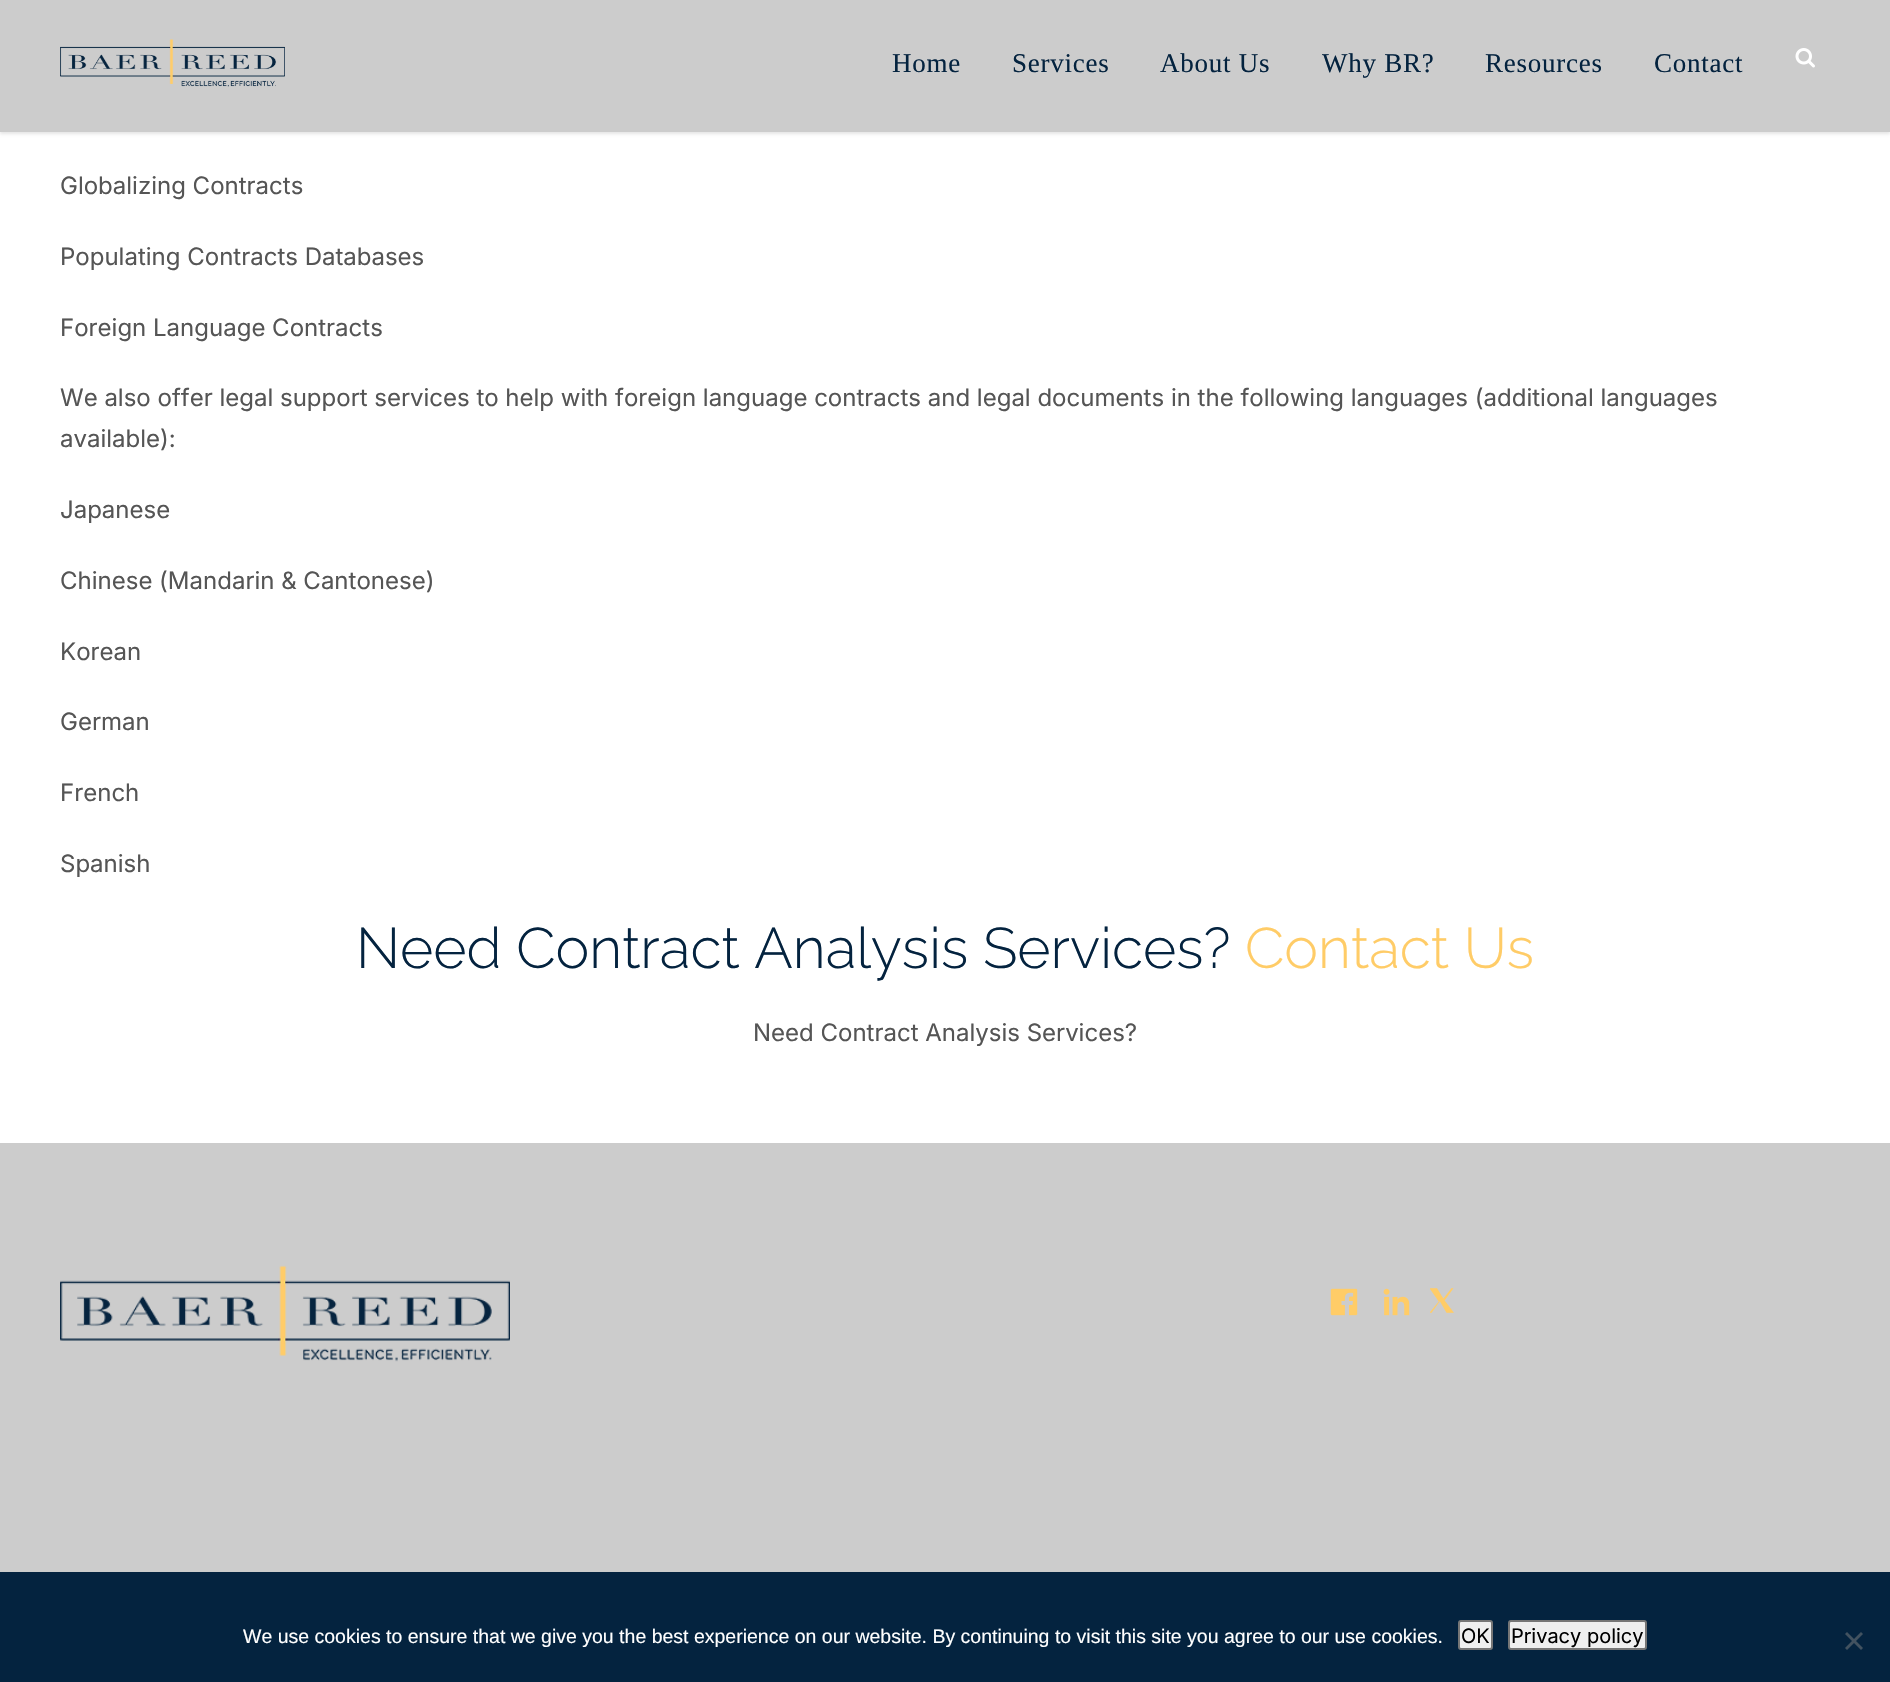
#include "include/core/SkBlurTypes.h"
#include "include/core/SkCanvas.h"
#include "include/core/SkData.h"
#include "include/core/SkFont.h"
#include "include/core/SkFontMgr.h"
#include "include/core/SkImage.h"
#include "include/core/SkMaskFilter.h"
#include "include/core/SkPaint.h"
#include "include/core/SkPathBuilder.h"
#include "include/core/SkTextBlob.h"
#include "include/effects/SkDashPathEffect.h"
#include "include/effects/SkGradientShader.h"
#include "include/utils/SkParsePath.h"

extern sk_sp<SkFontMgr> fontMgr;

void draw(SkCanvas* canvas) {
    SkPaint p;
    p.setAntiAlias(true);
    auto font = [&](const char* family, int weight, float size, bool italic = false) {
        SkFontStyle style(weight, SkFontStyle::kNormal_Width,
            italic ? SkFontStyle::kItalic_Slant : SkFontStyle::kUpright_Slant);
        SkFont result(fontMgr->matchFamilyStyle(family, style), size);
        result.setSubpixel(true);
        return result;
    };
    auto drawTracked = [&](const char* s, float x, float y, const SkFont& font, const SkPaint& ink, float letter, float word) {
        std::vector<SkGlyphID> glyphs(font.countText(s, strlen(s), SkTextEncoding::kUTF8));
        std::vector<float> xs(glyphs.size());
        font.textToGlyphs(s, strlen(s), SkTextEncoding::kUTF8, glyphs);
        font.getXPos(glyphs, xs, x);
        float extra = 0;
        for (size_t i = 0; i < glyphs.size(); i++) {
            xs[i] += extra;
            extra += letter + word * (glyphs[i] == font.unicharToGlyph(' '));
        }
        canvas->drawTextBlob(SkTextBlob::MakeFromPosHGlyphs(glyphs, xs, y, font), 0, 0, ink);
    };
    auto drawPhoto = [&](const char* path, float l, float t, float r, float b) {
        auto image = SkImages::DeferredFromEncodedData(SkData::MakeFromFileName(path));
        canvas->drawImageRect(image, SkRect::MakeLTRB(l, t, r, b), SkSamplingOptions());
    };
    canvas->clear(0xFFFFFFFF);
    p.setColor(0x1A000000);
    p.setMaskFilter(SkMaskFilter::MakeBlur(kNormal_SkBlurStyle, 1.5f));
    canvas->drawRect(SkRect::MakeLTRB(0, 2, 1890, 134), p);
    p.setMaskFilter(nullptr);
    p.setColor(0xFFCCCCCC);
    canvas->drawRect(SkRect::MakeLTRB(0, 0, 1890, 132), p);
    drawPhoto("media/1.png", 60, 39, 285, 87);
    auto font1 = font("Liberation Serif", 400, 27);
    p.setColor(0xFF04233F);
    {
        const struct { const char* s; float x, y; } items[] = {
            {"Home", 892, 72},
            {"Services", 1012, 72},
            {"About Us", 1160, 72},
            {"Why BR?", 1322, 72},
            {"Resources", 1485, 72},
            {"Contact", 1654, 72},
        };
        for (auto [s, x, y] : items) {
            drawTracked(s, x, y, font1, p, 0.75f, 0);
        }
    }
    drawPhoto("media/2.png", 1795, 48, 1815, 68);
    auto font2 = font("Inter", 400, 24);
    p.setColor(0xFF555555);
    {
        const struct { const char* s; float x, y; } items[] = {
            {"Globalizing Contracts", 60, 194},
            {"Populating Contracts Databases", 60, 265},
            {"Foreign Language Contracts", 60, 336},
            {"We also offer legal support services to help with foreign language contracts and legal documents in the following languages (additional languages", 60, 406},
            {"available):", 60, 447},
            {"Japanese", 60, 518},
            {"Chinese (Mandarin & Cantonese)", 60, 589},
            {"Korean", 60, 660},
            {"German", 60, 730},
            {"French", 60, 801},
            {"Spanish", 60, 872},
        };
        for (auto [s, x, y] : items) {
            canvas->drawString(s, x, y, font2, p);
        }
    }
    auto font3 = font("Raleway", 100, 57);
    p.setColor(0xFF04233F);
    canvas->drawString("Need Contract Analysis Services?", 356, 968, font3, p);
    p.setColor(0xFFFFCC67);
    canvas->drawString("Contact Us", 1245, 968, font3, p);
    p.setColor(0xFF555555);
    canvas->drawString("Need Contract Analysis Services?", 753, 1041, font2, p);
    p.setColor(0xFFCCCCCC);
    canvas->drawRect(SkRect::MakeLTRB(0, 1143, 1890, 1572), p);
    drawPhoto("media/3.png", 60, 1265, 510, 1362);
    drawPhoto("media/4.png", 1330, 1288, 1358, 1316);
    drawPhoto("media/5.png", 1383, 1288, 1410, 1316);
    drawPhoto("media/6.png", 1430, 1288, 1454, 1313);
    p.setColor(0xFF04233F);
    canvas->drawRect(SkRect::MakeLTRB(0, 1572, 1890, 1682), p);
    auto font4 = font("Liberation Sans", 400, 19.5f);
    p.setColor(0xFFFFFFFF);
    canvas->drawString("We use cookies to ensure that we give you the best experience on our website. By continuing to visit this site you agree to our use cookies.", 243, 1643, font4, p);
    p.setColor(0xFFEFEFEF);
    canvas->drawRoundRect(SkRect::MakeLTRB(1459, 1621, 1492, 1649), 2, 2, p);
    p.setStyle(SkPaint::kStroke_Style);
    p.setStrokeWidth(2);
    p.setColor(0xFF767676);
    canvas->drawRoundRect(SkRect::MakeLTRB(1459, 1621, 1492, 1649), 2, 2, p);
    auto font5 = font("Inter", 400, 20);
    p.setStyle(SkPaint::kFill_Style);
    p.setColor(0xFF000000);
    canvas->drawString("OK", 1461, 1643, font5, p);
    p.setColor(0xFFEFEFEF);
    canvas->drawRoundRect(SkRect::MakeLTRB(1509, 1621, 1646, 1649), 2, 2, p);
    p.setStyle(SkPaint::kStroke_Style);
    p.setColor(0xFF767676);
    canvas->drawRoundRect(SkRect::MakeLTRB(1509, 1621, 1646, 1649), 2, 2, p);
    p.setStyle(SkPaint::kFill_Style);
    p.setColor(0xFF000000);
    canvas->drawString("Privacy policy", 1511, 1643, font5, p);
    p.setColor(0xFF425260);
    canvas->drawPath(SkPathBuilder().moveTo(1861, 1632).lineTo(1863, 1634).lineTo(1847, 1650).lineTo(1845, 1648).close().detach(), p);
    canvas->drawPath(SkPathBuilder().moveTo(1845, 1634).lineTo(1847, 1632).lineTo(1863, 1648).lineTo(1861, 1650).close().detach(), p);
}
